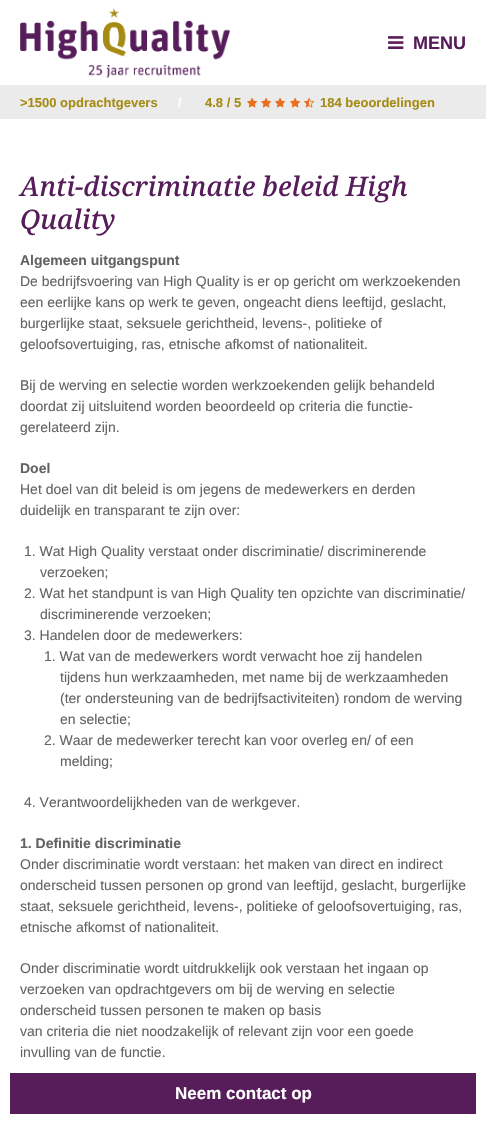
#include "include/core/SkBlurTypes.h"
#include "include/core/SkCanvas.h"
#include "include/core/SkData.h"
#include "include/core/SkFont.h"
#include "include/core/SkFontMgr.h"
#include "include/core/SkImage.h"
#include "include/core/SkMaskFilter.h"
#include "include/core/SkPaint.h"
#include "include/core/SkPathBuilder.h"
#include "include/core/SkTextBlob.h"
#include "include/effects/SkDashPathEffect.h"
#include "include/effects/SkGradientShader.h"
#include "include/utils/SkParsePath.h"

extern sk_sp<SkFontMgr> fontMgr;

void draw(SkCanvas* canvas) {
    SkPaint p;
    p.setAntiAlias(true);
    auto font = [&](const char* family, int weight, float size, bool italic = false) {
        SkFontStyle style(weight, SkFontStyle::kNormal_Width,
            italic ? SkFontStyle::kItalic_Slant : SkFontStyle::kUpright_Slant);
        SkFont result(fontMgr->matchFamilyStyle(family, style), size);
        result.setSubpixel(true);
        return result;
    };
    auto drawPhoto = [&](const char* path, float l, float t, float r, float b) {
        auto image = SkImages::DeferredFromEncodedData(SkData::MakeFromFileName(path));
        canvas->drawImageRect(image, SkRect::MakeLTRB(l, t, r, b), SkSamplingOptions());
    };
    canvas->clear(0xFFFFFFFF);
    drawPhoto("media/1.png", 20, 8, 230, 78);
    drawPhoto("media/2.png", 388, 36, 404, 49);
    auto font1 = font("Liberation Sans", 700, 18);
    p.setColor(0xFF561D5A);
    canvas->drawString("MENU", 413, 49, font1, p);
    p.setColor(0xFFEBEBEB);
    canvas->drawRect(SkRect::MakeLTRB(0, 85, 486, 119), p);
    auto font2 = font("Liberation Sans", 700, 13);
    p.setColor(0xFFA58B14);
    canvas->drawString(">1500 opdrachtgevers", 20, 107, font2, p);
    p.setColor(0xFFFFFFFF);
    canvas->drawString("/", 178, 107, font2, p);
    p.setColor(0xFFA58B14);
    canvas->drawString("4.8 / 5", 205, 107, font2, p);
    drawPhoto("media/3.png", 247, 97, 258, 108);
    drawPhoto("media/3.png", 261, 97, 272, 108);
    drawPhoto("media/3.png", 275, 97, 286, 108);
    drawPhoto("media/3.png", 290, 97, 301, 108);
    drawPhoto("media/4.png", 304, 97, 315, 108);
    canvas->drawString("184 beoordelingen", 320, 107, font2, p);
    auto font3 = font("Noto Serif", 500, 27, true);
    p.setColor(0xFF561D5A);
    canvas->drawString("Anti-discriminatie beleid High", 20, 196, font3, p);
    canvas->drawString("Quality", 20, 229, font3, p);
    auto font4 = font("Liberation Sans", 700, 14);
    p.setColor(0xFF646363);
    canvas->drawString("Algemeen uitgangspunt", 20, 265, font4, p);
    auto font5 = font("Liberation Sans", 400, 14);
    {
        const struct { const char* s; float x, y; } items[] = {
            {"De bedrijfsvoering van High Quality is er op gericht om werkzoekenden", 20, 286},
            {"een eerlijke kans op werk te geven, ongeacht diens leeftijd, geslacht,", 20, 307},
            {"burgerlijke staat, seksuele gerichtheid, levens-, politieke of", 20, 328},
            {"geloofsovertuiging, ras, etnische afkomst of nationaliteit.", 20, 349},
            {"Bij de werving en selectie worden werkzoekenden gelijk behandeld", 20, 390},
            {"doordat zij uitsluitend worden beoordeeld op criteria die functie-", 20, 411},
            {"gerelateerd zijn.", 20, 432},
        };
        for (auto [s, x, y] : items) {
            canvas->drawString(s, x, y, font5, p);
        }
    }
    canvas->drawString("Doel", 20, 473, font4, p);
    {
        const struct { const char* s; float x, y; } items[] = {
            {"Het doel van dit beleid is om jegens de medewerkers en derden", 20, 494},
            {"duidelijk en transparant te zijn over:", 20, 515},
            {"1. Wat High Quality verstaat onder discriminatie/ discriminerende", 24, 556},
            {"verzoeken;", 40, 577},
            {"2. Wat het standpunt is van High Quality ten opzichte van discriminatie/", 24, 598},
            {"discriminerende verzoeken;", 40, 619},
            {"3. Handelen door de medewerkers:", 24, 640},
            {"1. Wat van de medewerkers wordt verwacht hoe zij handelen", 44, 661},
            {"tijdens hun werkzaamheden, met name bij de werkzaamheden", 60, 682},
            {"(ter ondersteuning van de bedrijfsactiviteiten) rondom de werving", 60, 703},
            {"en selectie;", 60, 724},
            {"2. Waar de medewerker terecht kan voor overleg en/ of een", 44, 745},
            {"melding;", 60, 766},
            {"4. Verantwoordelijkheden van de werkgever.", 24, 807},
        };
        for (auto [s, x, y] : items) {
            canvas->drawString(s, x, y, font5, p);
        }
    }
    canvas->drawString("1. Definitie discriminatie", 20, 848, font4, p);
    {
        const struct { const char* s; float x, y; } items[] = {
            {"Onder discriminatie wordt verstaan: het maken van direct en indirect", 20, 869},
            {"onderscheid tussen personen op grond van leeftijd, geslacht, burgerlijke", 20, 890},
            {"staat, seksuele gerichtheid, levens-, politieke of geloofsovertuiging, ras,", 20, 911},
            {"etnische afkomst of nationaliteit.", 20, 932},
            {"Onder discriminatie wordt uitdrukkelijk ook verstaan het ingaan op", 20, 973},
            {"verzoeken van opdrachtgevers om bij de werving en selectie", 20, 994},
            {"onderscheid tussen personen te maken op basis", 20, 1015},
            {"van criteria die niet noodzakelijk of relevant zijn voor een goede", 20, 1036},
            {"invulling van de functie.", 20, 1057},
        };
        for (auto [s, x, y] : items) {
            canvas->drawString(s, x, y, font5, p);
        }
    }
    p.setColor(0xFF561D5A);
    canvas->drawRect(SkRect::MakeLTRB(10, 1073, 476, 1114), p);
    auto font6 = font("Liberation Sans", 700, 17);
    p.setColor(0xFFFFFFFF);
    canvas->drawString("Neem contact op", 175, 1099, font6, p);
}
